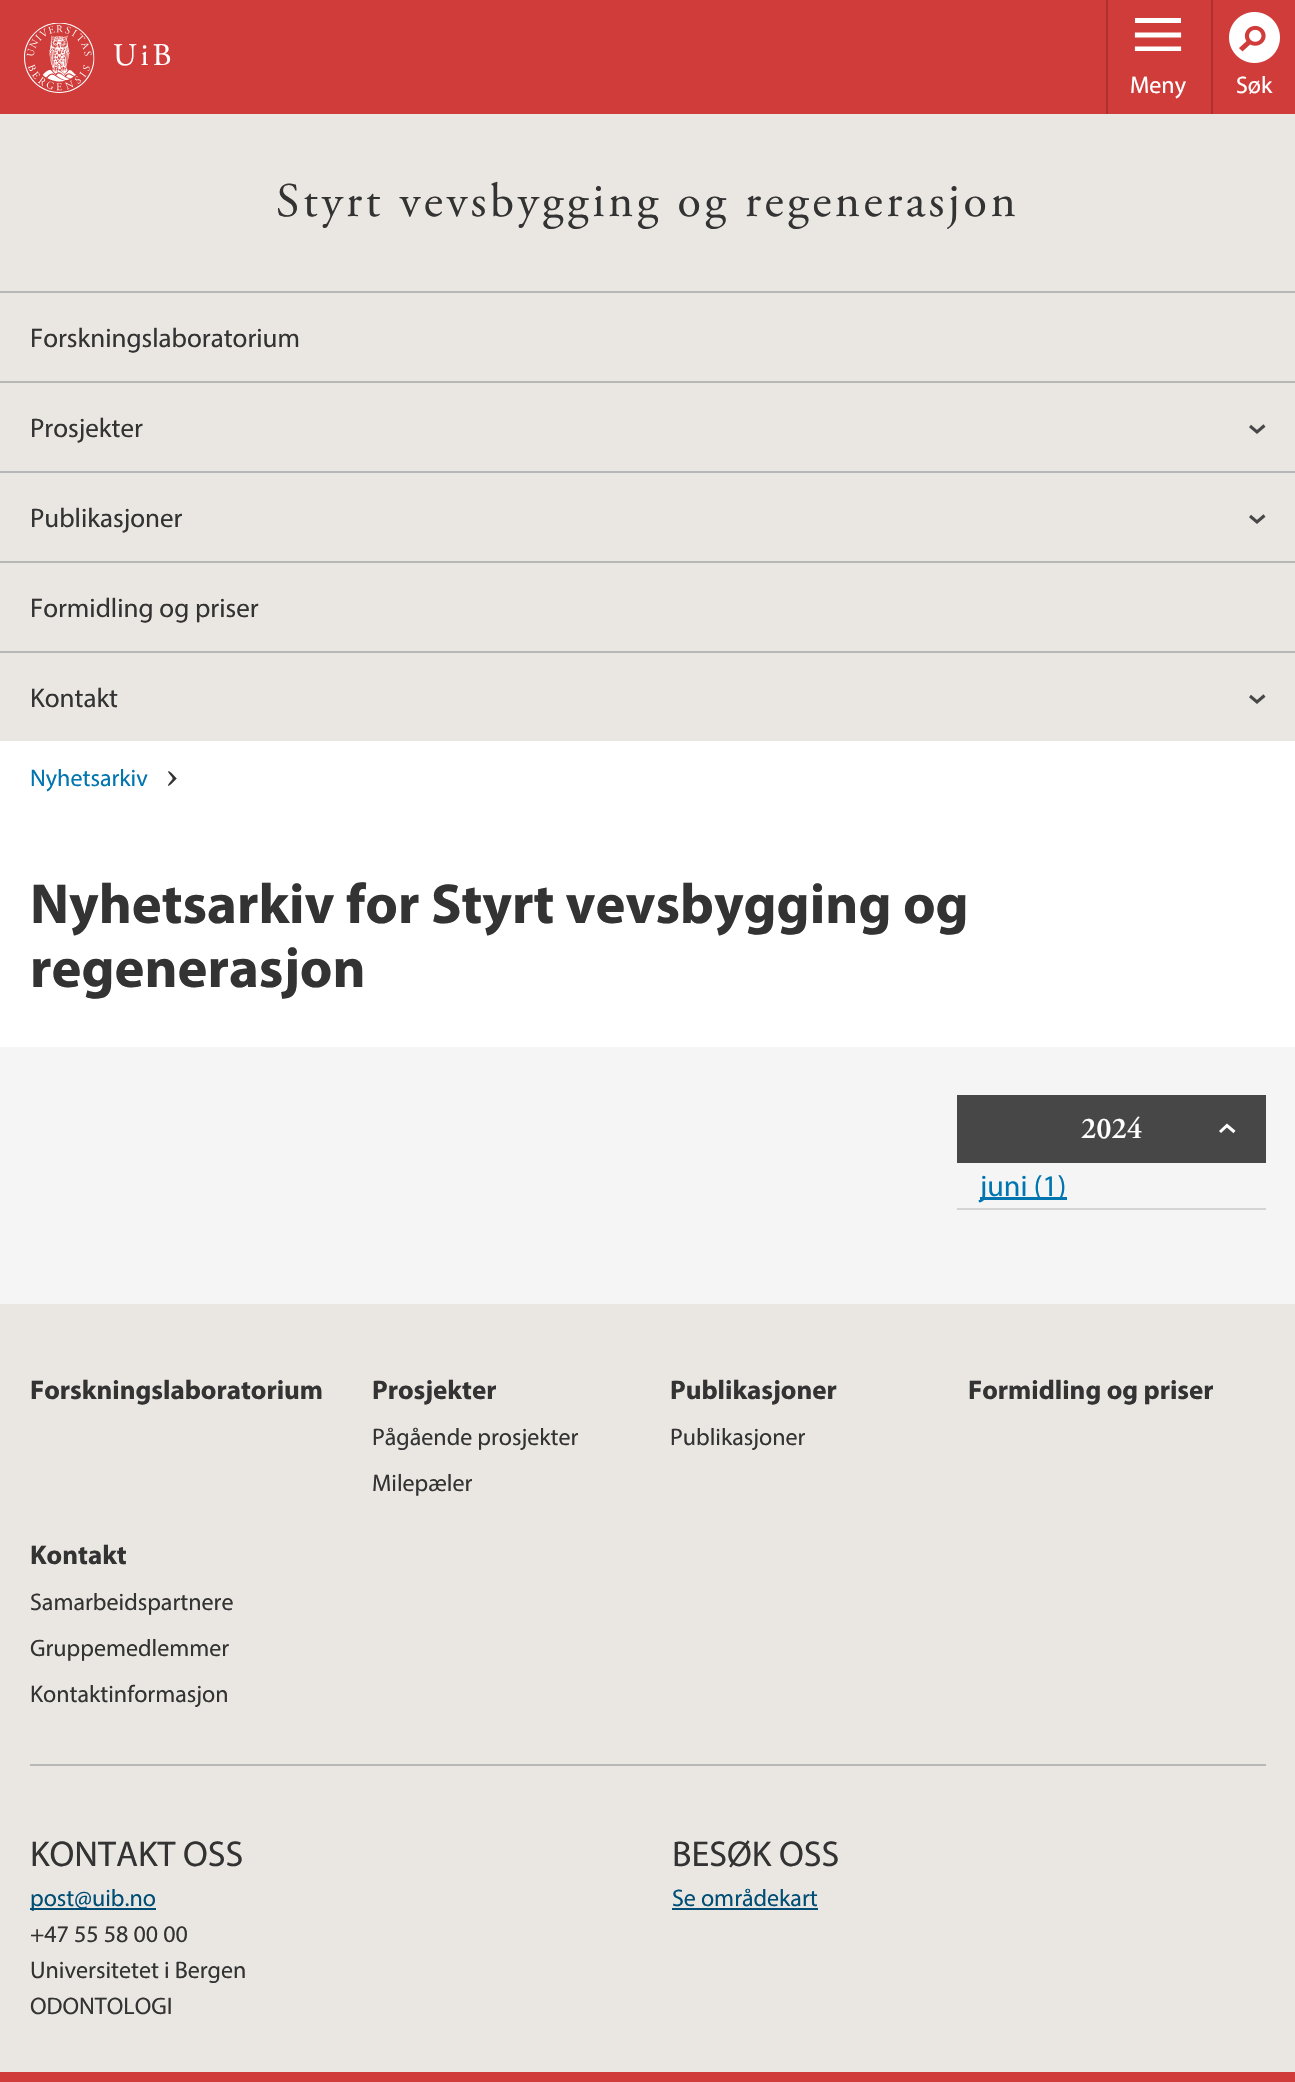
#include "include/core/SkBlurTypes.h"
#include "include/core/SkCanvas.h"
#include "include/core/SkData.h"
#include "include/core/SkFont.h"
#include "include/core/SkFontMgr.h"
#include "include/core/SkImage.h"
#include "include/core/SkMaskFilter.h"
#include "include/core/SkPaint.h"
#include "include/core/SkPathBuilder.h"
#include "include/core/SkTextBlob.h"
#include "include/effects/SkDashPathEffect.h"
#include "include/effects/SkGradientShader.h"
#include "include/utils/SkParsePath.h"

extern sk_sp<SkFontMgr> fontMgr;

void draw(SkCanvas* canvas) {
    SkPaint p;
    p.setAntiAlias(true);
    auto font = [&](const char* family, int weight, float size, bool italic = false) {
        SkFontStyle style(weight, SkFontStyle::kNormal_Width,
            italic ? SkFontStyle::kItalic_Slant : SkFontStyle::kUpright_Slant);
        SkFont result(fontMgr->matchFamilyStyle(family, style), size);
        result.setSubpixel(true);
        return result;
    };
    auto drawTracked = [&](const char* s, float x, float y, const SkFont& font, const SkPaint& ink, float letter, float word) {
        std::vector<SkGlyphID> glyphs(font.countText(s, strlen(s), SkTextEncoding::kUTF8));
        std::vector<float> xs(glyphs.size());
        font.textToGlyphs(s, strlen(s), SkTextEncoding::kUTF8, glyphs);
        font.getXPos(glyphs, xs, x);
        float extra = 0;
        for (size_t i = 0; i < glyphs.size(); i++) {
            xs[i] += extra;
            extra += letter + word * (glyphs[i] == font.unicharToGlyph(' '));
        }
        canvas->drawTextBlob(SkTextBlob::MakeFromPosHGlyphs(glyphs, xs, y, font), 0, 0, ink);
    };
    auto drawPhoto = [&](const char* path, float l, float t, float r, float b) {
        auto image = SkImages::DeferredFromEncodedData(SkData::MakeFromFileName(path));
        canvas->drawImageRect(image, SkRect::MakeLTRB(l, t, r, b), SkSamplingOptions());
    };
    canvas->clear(0xFFFFFFFF);
    p.setColor(0xFFCF3C3A);
    canvas->drawRect(SkRect::MakeLTRB(0, 0, 1295, 114), p);
    drawPhoto("media/1.png", 24, 23, 95, 93);
    auto font1 = font("Adobe Garamond", 400, 31.5f);
    p.setColor(0xFFFFFFFF);
    drawTracked("UiB", 113, 65, font1, p, 4, 0);
    canvas->drawRect(SkRect::MakeLTRB(1135, 18, 1181, 23), p);
    p.setStyle(SkPaint::kStroke_Style);
    p.setStrokeWidth(5.2f);
    p.setStrokeCap(SkPaint::kSquare_Cap);
    canvas->drawPath(SkPathBuilder().moveTo(1137.5f, 35).lineTo(1178.5f, 35).detach(), p);
    canvas->save();
    canvas->clipRect(SkRect::MakeLTRB(1134, 18, 1182, 51));
    canvas->drawPath(SkPathBuilder().moveTo(1137.5f, 49).lineTo(1178.5f, 49).detach(), p);
    canvas->restore();
    p.setStyle(SkPaint::kFill_Style);
    p.setColor(0xFFAE2F2F);
    canvas->drawRect(SkRect::MakeLTRB(1211, 0, 1213, 114), p);
    canvas->drawRect(SkRect::MakeLTRB(1106, 0, 1108, 114), p);
    auto font2 = font("Myriad", 400, 24);
    p.setColor(0xFFFFFFFF);
    canvas->drawString("Meny", 1130, 93, font2, p);
    drawPhoto("media/2.png", 1229, 12, 1280, 63);
    canvas->drawString("Søk", 1236, 93, font2, p);
    p.setColor(0xFFEAE6E2);
    canvas->drawRect(SkRect::MakeLTRB(0, 114, 1295, 741), p);
    auto font3 = font("Adobe Garamond", 400, 48);
    p.setColor(0xFF333333);
    drawTracked("Styrt vevsbygging og regenerasjon", 276, 216, font3, p, 3.6f, 0);
    p.setColor(0xFFB7B7B7);
    canvas->drawRect(SkRect::MakeLTRB(0, 291, 1295, 293), p);
    auto font4 = font("Myriad", 400, 27);
    p.setColor(0xFF333333);
    canvas->drawString("Forskningslaboratorium", 30, 347, font4, p);
    p.setStyle(SkPaint::kStroke_Style);
    p.setStrokeWidth(3);
    p.setStrokeCap(SkPaint::kButt_Cap);
    p.setColor(0xFF474747);
    canvas->drawPath(SkPathBuilder().moveTo(1264.5f, 425.5f).lineTo(1257, 432).lineTo(1250, 426).detach(), p);
    p.setStyle(SkPaint::kFill_Style);
    p.setColor(0xFFB7B7B7);
    canvas->drawRect(SkRect::MakeLTRB(0, 381, 1295, 383), p);
    p.setColor(0xFF333333);
    canvas->drawString("Prosjekter", 30, 437, font4, p);
    p.setStyle(SkPaint::kStroke_Style);
    p.setColor(0xFF474747);
    canvas->drawPath(SkPathBuilder().moveTo(1264.5f, 515.5f).lineTo(1257, 522).lineTo(1250, 516).detach(), p);
    p.setStyle(SkPaint::kFill_Style);
    p.setColor(0xFFB7B7B7);
    canvas->drawRect(SkRect::MakeLTRB(0, 471, 1295, 473), p);
    p.setColor(0xFF333333);
    canvas->drawString("Publikasjoner", 30, 527, font4, p);
    p.setColor(0xFFB7B7B7);
    canvas->drawRect(SkRect::MakeLTRB(0, 561, 1295, 563), p);
    p.setColor(0xFF333333);
    canvas->drawString("Formidling og priser", 30, 617, font4, p);
    p.setStyle(SkPaint::kStroke_Style);
    p.setColor(0xFF474747);
    canvas->drawPath(SkPathBuilder().moveTo(1264.5f, 695.5f).lineTo(1257, 702).lineTo(1250, 696).detach(), p);
    p.setStyle(SkPaint::kFill_Style);
    p.setColor(0xFFB7B7B7);
    canvas->drawRect(SkRect::MakeLTRB(0, 651, 1295, 653), p);
    p.setColor(0xFF333333);
    canvas->drawString("Kontakt", 30, 707, font4, p);
    p.setColor(0xFF0075AF);
    canvas->drawString("Nyhetsarkiv", 30, 786, font2, p);
    drawPhoto("media/3.png", 168, 771, 177, 786);
    auto font5 = font("Myriad", 700, 56.6f);
    p.setColor(0xFF333333);
    canvas->drawString("Nyhetsarkiv for Styrt vevsbygging og", 30, 923, font5, p);
    canvas->drawString("regenerasjon", 30, 987, font5, p);
    p.setColor(0xFFF5F5F5);
    canvas->drawRect(SkRect::MakeLTRB(0, 1047, 1295, 1304), p);
    p.setColor(0xFF474747);
    canvas->drawRect(SkRect::MakeLTRB(957, 1095, 1266, 1163), p);
    auto font6 = font("Adobe Garamond", 600, 30);
    p.setColor(0xFFFFFFFF);
    canvas->drawString("2024", 1081, 1138, font6, p);
    p.setStyle(SkPaint::kStroke_Style);
    canvas->drawPath(SkPathBuilder().moveTo(1220, 1132).lineTo(1227, 1125.5f).lineTo(1234.5f, 1132).detach(), p);
    p.setStyle(SkPaint::kFill_Style);
    p.setColor(0xFFD5D5D5);
    canvas->drawRect(SkRect::MakeLTRB(957, 1208, 1266, 1210), p);
    p.setColor(0xFF0075AF);
    canvas->drawRect(SkRect::MakeLTRB(980, 1197, 1067, 1200), p);
    auto font7 = font("Myriad", 400, 30);
    canvas->drawString("juni (1)", 980, 1196, font7, p);
    p.setColor(0xFFEAE6E2);
    canvas->drawRect(SkRect::MakeLTRB(0, 1304, 1295, 2072), p);
    p.setColor(0xFFB7B7B7);
    canvas->drawRect(SkRect::MakeLTRB(30, 1764, 1266, 1766), p);
    auto font8 = font("Myriad", 700, 27);
    p.setColor(0xFF333333);
    canvas->drawString("Forskningslaboratorium", 30, 1399, font8, p);
    canvas->drawString("Prosjekter", 372, 1399, font8, p);
    canvas->drawString("Pågående prosjekter", 372, 1445, font2, p);
    canvas->drawString("Milepæler", 372, 1491, font2, p);
    canvas->drawString("Publikasjoner", 670, 1399, font8, p);
    canvas->drawString("Publikasjoner", 670, 1445, font2, p);
    canvas->drawString("Formidling og priser", 968, 1399, font8, p);
    canvas->drawString("Kontakt", 30, 1564, font8, p);
    {
        const struct { const char* s; float x, y; } items[] = {
            {"Samarbeidspartnere", 30, 1610},
            {"Gruppemedlemmer", 30, 1656},
            {"Kontaktinformasjon", 30, 1702},
        };
        for (auto [s, x, y] : items) {
            canvas->drawString(s, x, y, font2, p);
        }
    }
    auto font9 = font("Myriad", 400, 36);
    canvas->drawString("KONTAKT OSS", 30, 1866, font9, p);
    p.setColor(0xFF004E75);
    canvas->drawRect(SkRect::MakeLTRB(30, 1908, 156, 1910), p);
    canvas->drawString("post@uib.no", 30, 1906, font2, p);
    p.setColor(0xFF333333);
    {
        const struct { const char* s; float x, y; } items[] = {
            {"+47 55 58 00 00", 30, 1942},
            {"Universitetet i Bergen", 30, 1978},
            {"ODONTOLOGI", 30, 2014},
        };
        for (auto [s, x, y] : items) {
            canvas->drawString(s, x, y, font2, p);
        }
    }
    canvas->drawString("BESØK OSS", 672, 1866, font9, p);
    p.setColor(0xFF004E75);
    canvas->drawString("Se områdekart", 672, 1906, font2, p);
    canvas->drawRect(SkRect::MakeLTRB(672, 1908, 818, 1910), p);
    p.setColor(0xFFCF3C3A);
    canvas->drawRect(SkRect::MakeLTRB(0, 2072, 1295, 2082), p);
}
